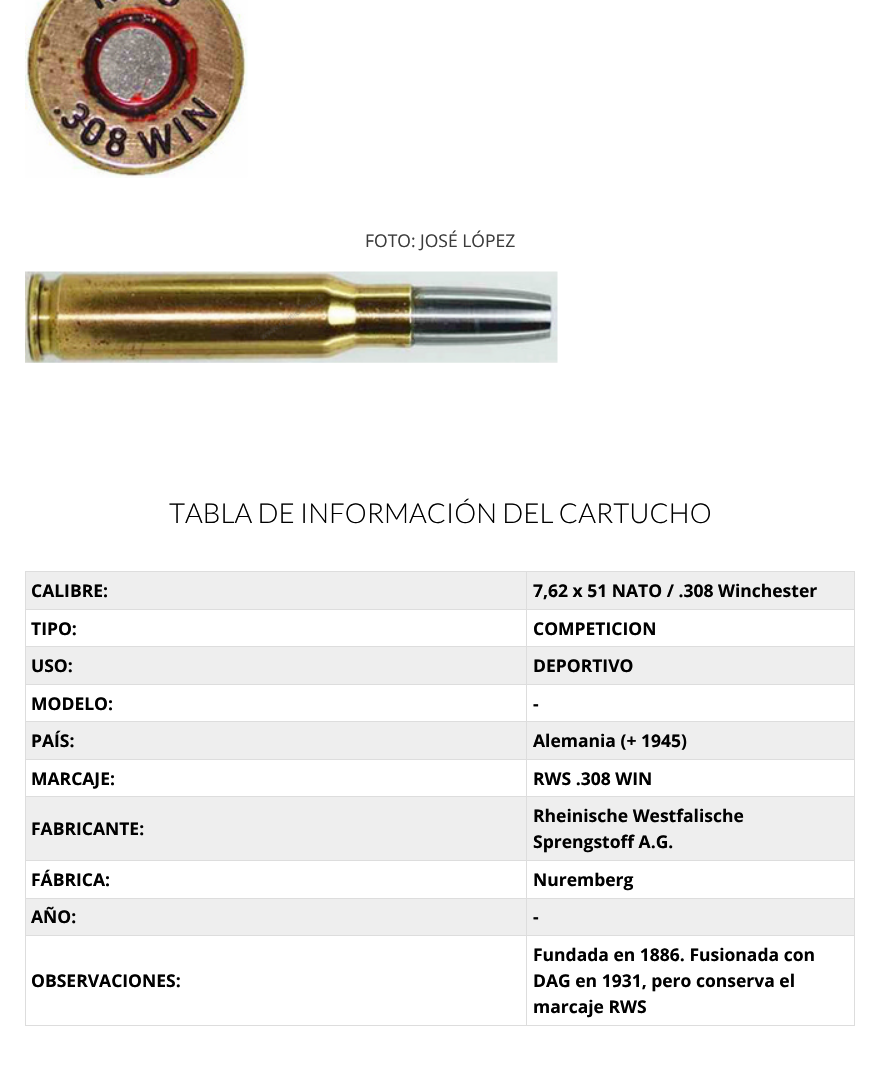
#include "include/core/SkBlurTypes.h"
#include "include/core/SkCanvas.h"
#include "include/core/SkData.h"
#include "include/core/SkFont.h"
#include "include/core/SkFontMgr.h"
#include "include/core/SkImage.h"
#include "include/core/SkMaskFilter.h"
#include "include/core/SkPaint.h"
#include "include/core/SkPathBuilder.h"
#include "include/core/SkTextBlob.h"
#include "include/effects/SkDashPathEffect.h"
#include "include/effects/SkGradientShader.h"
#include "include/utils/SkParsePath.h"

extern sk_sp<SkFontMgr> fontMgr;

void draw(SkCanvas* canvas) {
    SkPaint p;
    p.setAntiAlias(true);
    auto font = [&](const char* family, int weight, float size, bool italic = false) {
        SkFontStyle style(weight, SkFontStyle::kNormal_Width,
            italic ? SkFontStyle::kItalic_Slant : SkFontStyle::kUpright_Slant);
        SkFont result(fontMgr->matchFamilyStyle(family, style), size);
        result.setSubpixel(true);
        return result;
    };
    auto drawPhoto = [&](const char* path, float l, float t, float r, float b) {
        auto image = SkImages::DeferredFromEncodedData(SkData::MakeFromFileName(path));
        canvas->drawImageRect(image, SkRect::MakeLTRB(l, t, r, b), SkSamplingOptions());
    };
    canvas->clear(0xFFFFFFFF);
    drawPhoto("media/1.png", 25, 0, 248, 178);
    auto font1 = font("Open Sans", 400, 17.5f);
    p.setColor(0xFF3C3C3C);
    canvas->drawString("FOTO: JOSÉ LÓPEZ", 365, 247, font1, p);
    drawPhoto("media/2.png", 25, 271, 558, 363);
    auto font2 = font("Lato", 300, 27.5f);
    p.setColor(0xFF000000);
    canvas->drawString("TABLA DE INFORMACIÓN DEL CARTUCHO", 169, 523, font2, p);
    {
        const struct { float l, t, r, b; SkColor color; } items[] = {
            {26, 572, 854, 609, 0xFFEEEEEE},
            {25, 571, 855, 572, 0xFFDDDDDD},
            {25, 609, 855, 610, 0xFFDDDDDD},
            {25, 646, 855, 647, 0xFFDDDDDD},
            {25, 684, 855, 685, 0xFFDDDDDD},
            {25, 721, 855, 722, 0xFFDDDDDD},
            {25, 759, 855, 760, 0xFFDDDDDD},
            {25, 796, 855, 797, 0xFFDDDDDD},
            {25, 860, 855, 861, 0xFFDDDDDD},
            {25, 898, 855, 899, 0xFFDDDDDD},
            {25, 935, 855, 936, 0xFFDDDDDD},
            {854, 935, 855, 1026, 0xFFDDDDDD},
            {854, 898, 855, 936, 0xFFDDDDDD},
            {854, 860, 855, 899, 0xFFDDDDDD},
            {854, 796, 855, 861, 0xFFDDDDDD},
            {854, 759, 855, 798, 0xFFDDDDDD},
            {854, 721, 855, 760, 0xFFDDDDDD},
            {854, 684, 855, 723, 0xFFDDDDDD},
            {854, 646, 855, 685, 0xFFDDDDDD},
            {854, 609, 855, 648, 0xFFDDDDDD},
            {854, 571, 855, 610, 0xFFDDDDDD},
            {25, 1025, 855, 1026, 0xFFDDDDDD},
            {25, 935, 26, 1026, 0xFFDDDDDD},
            {25, 898, 26, 936, 0xFFDDDDDD},
            {25, 860, 26, 899, 0xFFDDDDDD},
            {25, 796, 26, 861, 0xFFDDDDDD},
            {25, 759, 26, 798, 0xFFDDDDDD},
            {25, 721, 26, 760, 0xFFDDDDDD},
            {25, 684, 26, 723, 0xFFDDDDDD},
            {25, 646, 26, 685, 0xFFDDDDDD},
            {25, 609, 26, 648, 0xFFDDDDDD},
            {25, 571, 26, 610, 0xFFDDDDDD},
        };
        for (auto [l, t, r, b, color] : items) {
            p.setColor(color);
            canvas->drawRect(SkRect::MakeLTRB(l, t, r, b), p);
        }
    }
    auto font3 = font("Open Sans", 700, 17.5f);
    p.setColor(0xFF000000);
    {
        const struct { const char* s; float x, y; } items[] = {
            {"CALIBRE:", 31, 597},
            {"7,62 x 51 NATO / .308 Winchester", 533, 597},
            {"TIPO:", 31, 635},
            {"COMPETICION", 533, 635},
        };
        for (auto [s, x, y] : items) {
            canvas->drawString(s, x, y, font3, p);
        }
    }
    p.setColor(0xFFEEEEEE);
    canvas->drawRect(SkRect::MakeLTRB(26, 647, 854, 684), p);
    p.setColor(0xFF000000);
    {
        const struct { const char* s; float x, y; } items[] = {
            {"USO:", 31, 672},
            {"DEPORTIVO", 533, 672},
            {"MODELO:", 31, 710},
            {"-", 533, 710},
        };
        for (auto [s, x, y] : items) {
            canvas->drawString(s, x, y, font3, p);
        }
    }
    p.setColor(0xFFEEEEEE);
    canvas->drawRect(SkRect::MakeLTRB(26, 722, 854, 759), p);
    p.setColor(0xFF000000);
    {
        const struct { const char* s; float x, y; } items[] = {
            {"PAÍS:", 31, 747},
            {"Alemania (+ 1945)", 533, 747},
            {"MARCAJE:", 31, 785},
            {"RWS .308 WIN", 533, 785},
        };
        for (auto [s, x, y] : items) {
            canvas->drawString(s, x, y, font3, p);
        }
    }
    p.setColor(0xFFEEEEEE);
    canvas->drawRect(SkRect::MakeLTRB(26, 797, 854, 860), p);
    p.setColor(0xFF000000);
    {
        const struct { const char* s; float x, y; } items[] = {
            {"FABRICANTE:", 31, 835},
            {"Rheinische Westfalische", 533, 822},
            {"Sprengstoff A.G.", 533, 848},
            {"FÁBRICA:", 31, 886},
            {"Nuremberg", 533, 886},
        };
        for (auto [s, x, y] : items) {
            canvas->drawString(s, x, y, font3, p);
        }
    }
    p.setColor(0xFFEEEEEE);
    canvas->drawRect(SkRect::MakeLTRB(26, 899, 854, 935), p);
    p.setColor(0xFF000000);
    {
        const struct { const char* s; float x, y; } items[] = {
            {"AÑO:", 31, 923},
            {"-", 533, 923},
            {"OBSERVACIONES:", 31, 987},
        };
        for (auto [s, x, y] : items) {
            canvas->drawString(s, x, y, font3, p);
        }
    }
    p.setColor(0xFFDDDDDD);
    canvas->drawRect(SkRect::MakeLTRB(526, 571, 527, 1026), p);
    p.setColor(0xFF000000);
    {
        const struct { const char* s; float x, y; } items[] = {
            {"Fundada en 1886. Fusionada con", 533, 961},
            {"DAG en 1931, pero conserva el", 533, 987},
            {"marcaje RWS", 533, 1013},
        };
        for (auto [s, x, y] : items) {
            canvas->drawString(s, x, y, font3, p);
        }
    }
}
